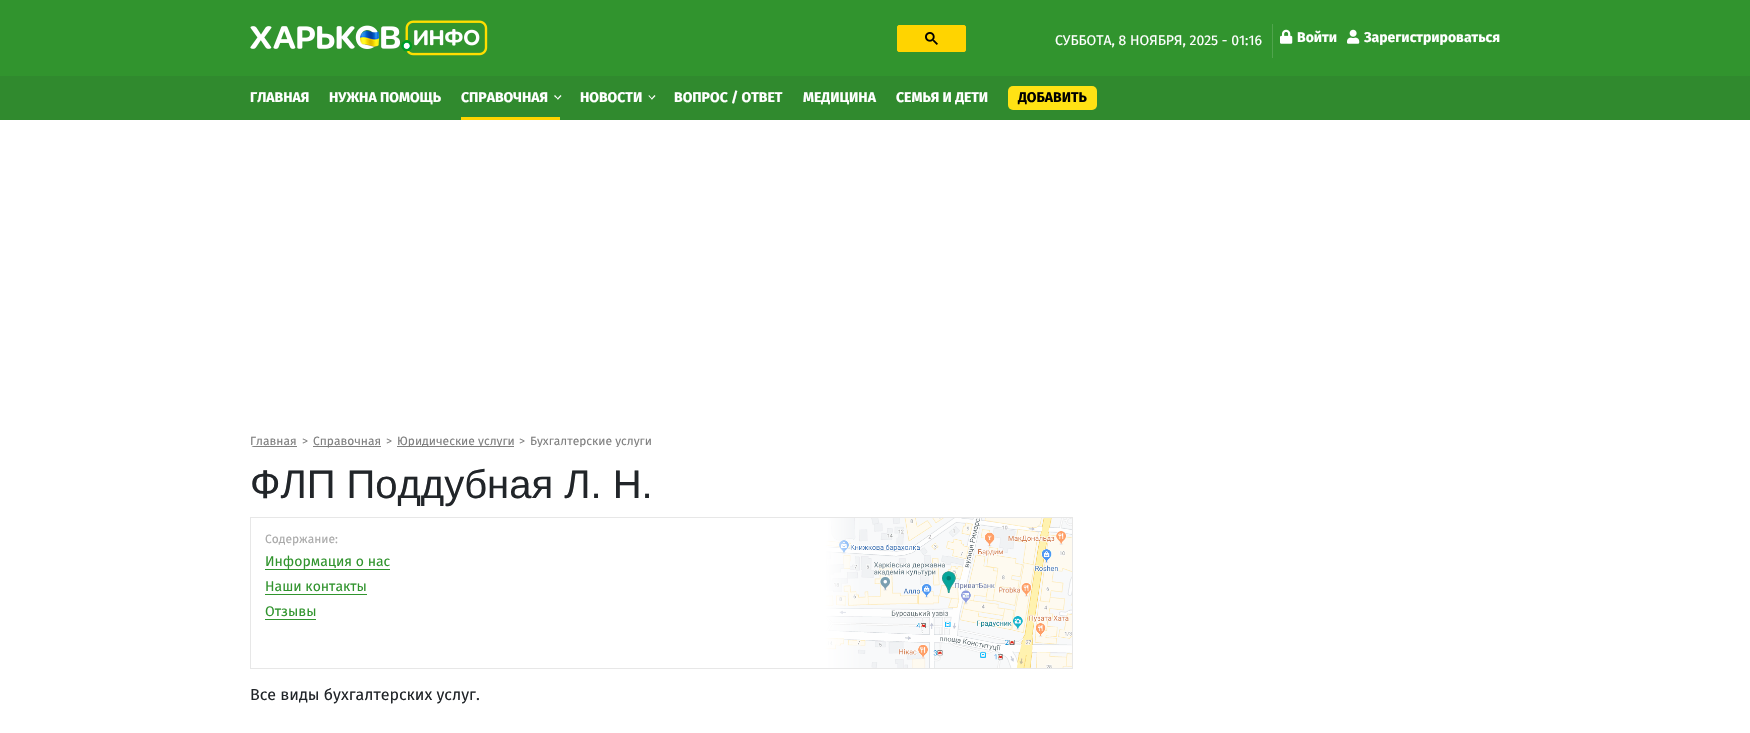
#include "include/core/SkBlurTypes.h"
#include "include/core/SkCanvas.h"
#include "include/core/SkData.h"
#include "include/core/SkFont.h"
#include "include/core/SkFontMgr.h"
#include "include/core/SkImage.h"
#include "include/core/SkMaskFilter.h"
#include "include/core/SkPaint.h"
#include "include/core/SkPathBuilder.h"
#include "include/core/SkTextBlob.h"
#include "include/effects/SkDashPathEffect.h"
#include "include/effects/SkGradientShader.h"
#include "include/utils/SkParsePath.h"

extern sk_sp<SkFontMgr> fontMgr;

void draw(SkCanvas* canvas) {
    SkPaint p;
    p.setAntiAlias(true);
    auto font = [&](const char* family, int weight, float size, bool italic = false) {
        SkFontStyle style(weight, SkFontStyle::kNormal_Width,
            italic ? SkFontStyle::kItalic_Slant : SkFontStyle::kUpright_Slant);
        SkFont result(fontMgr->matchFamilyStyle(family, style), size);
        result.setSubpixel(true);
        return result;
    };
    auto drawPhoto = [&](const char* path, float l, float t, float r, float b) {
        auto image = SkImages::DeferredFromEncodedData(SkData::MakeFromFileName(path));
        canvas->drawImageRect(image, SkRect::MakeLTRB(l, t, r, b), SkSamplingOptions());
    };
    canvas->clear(0xFFFFFFFF);
    p.setColor(0xFF31942E);
    canvas->drawRect(SkRect::MakeLTRB(0, 0, 1750, 76), p);
    drawPhoto("media/1.png", 250, 20, 488, 56);
    p.setColor(0xFFFFD400);
    canvas->drawRoundRect(SkRect::MakeLTRB(897.5f, 25.5f, 965.5f, 51.5f), 1.5f, 1.5f, p);
    p.setStyle(SkPaint::kStroke_Style);
    p.setStrokeWidth(1);
    canvas->drawRoundRect(SkRect::MakeLTRB(897.5f, 25.5f, 965.5f, 51.5f), 1.5f, 1.5f, p);
    drawPhoto("media/2.png", 925, 32, 938, 45);
    p.setStyle(SkPaint::kFill_Style);
    p.setColor(0xFF50A44D);
    canvas->drawRect(SkRect::MakeLTRB(1272, 24, 1273, 58), p);
    auto font1 = font("Fira Sans", 400, 14);
    p.setColor(0xFFFFFFFF);
    canvas->drawString("СУББОТА, 8 НОЯБРЯ, 2025 - 01:16", 1055, 45, font1, p);
    drawPhoto("media/3.png", 1280, 29, 1293, 44);
    auto font2 = font("Fira Sans", 700, 14);
    canvas->drawString("Войти", 1297, 42, font2, p);
    drawPhoto("media/4.png", 1347, 29, 1360, 44);
    canvas->drawString("Зарегистрироваться", 1364, 42, font2, p);
    p.setColor(0xFF308A2E);
    canvas->drawRect(SkRect::MakeLTRB(0, 76, 1750, 120), p);
    p.setColor(0xFFFFFFFF);
    {
        const struct { const char* s; float x, y; } items[] = {
            {"ГЛАВНАЯ", 250, 102},
            {"НУЖНА ПОМОЩЬ", 329, 102},
            {"СПРАВОЧНАЯ", 461, 102},
        };
        for (auto [s, x, y] : items) {
            canvas->drawString(s, x, y, font2, p);
        }
    }
    canvas->drawPath(SkPathBuilder().moveTo(557, 99).lineTo(560.5f, 95).lineTo(561.5f, 96).lineTo(558, 99.5f).close().detach(), p);
    canvas->drawPath(SkPathBuilder().moveTo(554, 96).lineTo(555, 95).lineTo(558.5f, 99).lineTo(558, 99.5f).close().detach(), p);
    p.setColor(0xFFFFD400);
    canvas->drawRect(SkRect::MakeLTRB(461, 117, 560, 120), p);
    p.setColor(0xFFFFFFFF);
    canvas->drawString("НОВОСТИ", 580, 102, font2, p);
    canvas->drawPath(SkPathBuilder().moveTo(651, 99).lineTo(654.5f, 95).lineTo(655.5f, 96).lineTo(652, 99.5f).close().detach(), p);
    canvas->drawPath(SkPathBuilder().moveTo(648.5f, 96).lineTo(649, 95).lineTo(652.5f, 99).lineTo(652, 99.5f).close().detach(), p);
    {
        const struct { const char* s; float x, y; } items[] = {
            {"ВОПРОС / ОТВЕТ", 674, 102},
            {"МЕДИЦИНА", 803, 102},
            {"СЕМЬЯ И ДЕТИ", 896, 102},
        };
        for (auto [s, x, y] : items) {
            canvas->drawString(s, x, y, font2, p);
        }
    }
    p.setColor(0xFFFFE214);
    canvas->drawRoundRect(SkRect::MakeLTRB(1008, 86, 1097, 110), 5, 5, p);
    p.setColor(0xFF000000);
    canvas->drawString("ДОБАВИТЬ", 1018, 102, font2, p);
    auto font3 = font("Fira Sans", 400, 12);
    p.setColor(0xFF808080);
    canvas->drawString("Главная", 250, 445, font3, p);
    canvas->save();
    canvas->clipPath(SkPathBuilder().moveTo(254, 435).lineTo(1496, 435).cubicTo(1498, 435, 1500, 437, 1500, 439).lineTo(1500, 443).cubicTo(1500, 445, 1498, 447, 1496, 447).lineTo(254, 447).cubicTo(252, 447, 250, 445, 250, 443).lineTo(250, 439).cubicTo(250, 437, 252, 435, 254, 435).close().detach(), true);
    canvas->drawRect(SkRect::MakeLTRB(250, 446, 297, 447), p);
    canvas->restore();
    canvas->drawString(">", 302, 445, font3, p);
    canvas->drawRect(SkRect::MakeLTRB(313, 446, 381, 447), p);
    canvas->drawString("Справочная", 313, 445, font3, p);
    canvas->drawString(">", 386, 445, font3, p);
    canvas->drawRect(SkRect::MakeLTRB(397, 446, 514, 447), p);
    canvas->save();
    canvas->clipPath(SkPathBuilder().moveTo(254, 435).lineTo(1496, 435).cubicTo(1498, 435, 1500, 437, 1500, 439).lineTo(1500, 443).cubicTo(1500, 445, 1498, 447, 1496, 447).lineTo(254, 447).cubicTo(252, 447, 250, 445, 250, 443).lineTo(250, 439).cubicTo(250, 437, 252, 435, 254, 435).close().detach(), true);
    canvas->drawString("Юридические услуги", 397, 445, font3, p);
    canvas->restore();
    canvas->drawString(">", 519, 445, font3, p);
    canvas->save();
    canvas->clipPath(SkPathBuilder().moveTo(254, 435).lineTo(1496, 435).cubicTo(1498, 435, 1500, 437, 1500, 439).lineTo(1500, 443).cubicTo(1500, 445, 1498, 447, 1496, 447).lineTo(254, 447).cubicTo(252, 447, 250, 445, 250, 443).lineTo(250, 439).cubicTo(250, 437, 252, 435, 254, 435).close().detach(), true);
    canvas->drawString("Бухгалтерские услуги", 530, 445, font3, p);
    canvas->restore();
    auto font4 = font("Liberation Sans", 400, 40);
    p.setColor(0xFF212529);
    canvas->drawString("ФЛП Поддубная Л. Н.", 250, 498, font4, p);
    p.setStyle(SkPaint::kStroke_Style);
    p.setColor(0xFFE7E7E7);
    canvas->drawRect(SkRect::MakeLTRB(250.5f, 517.5f, 1072.5f, 668.5f), p);
    p.setStyle(SkPaint::kFill_Style);
    p.setColor(0xFFAAAAAA);
    canvas->drawString("Содержание:", 265, 543, font3, p);
    drawPhoto("media/5.png", 825, 518, 1072, 668);
    p.setColor(0xFF31942E);
    canvas->drawString("Информация о нас", 265, 566, font1, p);
    canvas->drawRect(SkRect::MakeLTRB(265, 569, 390, 570), p);
    canvas->drawString("Наши контакты", 265, 591, font1, p);
    canvas->drawRect(SkRect::MakeLTRB(265, 594, 367, 595), p);
    canvas->drawString("Отзывы", 265, 616, font1, p);
    canvas->drawRect(SkRect::MakeLTRB(265, 619, 316, 620), p);
    auto font5 = font("Fira Sans", 400, 16);
    p.setColor(0xFF212529);
    canvas->drawString("Все виды бухгалтерских услуг.", 250, 700, font5, p);
}
